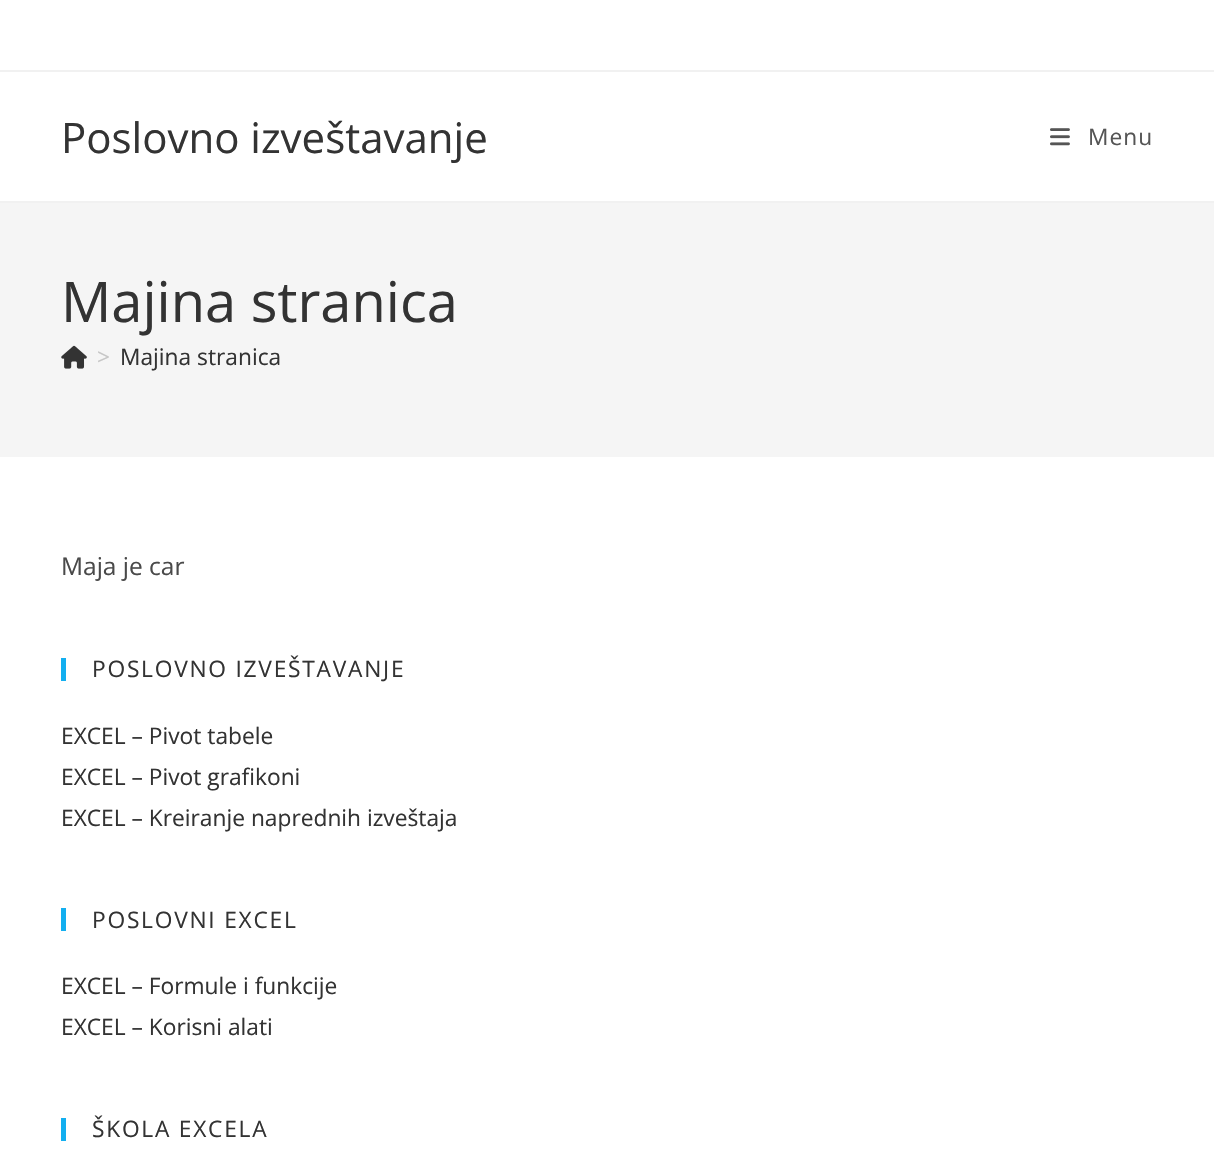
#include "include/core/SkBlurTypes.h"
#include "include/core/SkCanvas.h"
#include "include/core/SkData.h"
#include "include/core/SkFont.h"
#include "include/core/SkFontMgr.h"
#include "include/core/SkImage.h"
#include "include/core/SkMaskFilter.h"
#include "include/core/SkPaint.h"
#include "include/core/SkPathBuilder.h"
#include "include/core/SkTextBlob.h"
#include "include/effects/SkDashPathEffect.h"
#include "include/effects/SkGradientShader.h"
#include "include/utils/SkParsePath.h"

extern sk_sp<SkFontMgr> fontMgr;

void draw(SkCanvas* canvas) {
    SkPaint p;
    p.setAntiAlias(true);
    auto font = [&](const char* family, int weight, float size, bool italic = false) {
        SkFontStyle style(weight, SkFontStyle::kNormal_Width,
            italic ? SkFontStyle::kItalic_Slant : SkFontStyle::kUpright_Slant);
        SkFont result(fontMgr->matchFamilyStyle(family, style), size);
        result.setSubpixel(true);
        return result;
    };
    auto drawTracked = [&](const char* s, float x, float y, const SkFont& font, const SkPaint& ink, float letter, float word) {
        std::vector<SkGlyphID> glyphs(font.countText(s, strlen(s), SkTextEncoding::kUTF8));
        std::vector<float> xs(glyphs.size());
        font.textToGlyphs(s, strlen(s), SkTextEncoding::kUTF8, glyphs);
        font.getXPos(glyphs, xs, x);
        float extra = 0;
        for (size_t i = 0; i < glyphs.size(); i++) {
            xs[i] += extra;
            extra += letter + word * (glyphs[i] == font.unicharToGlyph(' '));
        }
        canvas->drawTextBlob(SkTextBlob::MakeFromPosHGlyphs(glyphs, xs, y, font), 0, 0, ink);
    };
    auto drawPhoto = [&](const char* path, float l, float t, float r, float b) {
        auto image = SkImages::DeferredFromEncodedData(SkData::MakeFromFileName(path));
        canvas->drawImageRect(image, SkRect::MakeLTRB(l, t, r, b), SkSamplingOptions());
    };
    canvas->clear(0xFFFFFFFF);
    p.setColor(0xFFF1F1F1);
    canvas->drawRect(SkRect::MakeLTRB(0, 70, 1214, 72), p);
    canvas->drawRect(SkRect::MakeLTRB(0, 201, 1214, 203), p);
    auto font1 = font("Open Sans", 400, 42);
    p.setColor(0xFF333333);
    canvas->drawString("Poslovno izveštavanje", 61, 153, font1, p);
    drawPhoto("media/1.png", 1050, 128, 1070, 146);
    auto font2 = font("Open Sans", 400, 22.75f);
    p.setColor(0xFF555555);
    drawTracked("Menu", 1088, 145, font2, p, 1, 0);
    p.setColor(0xFFF5F5F5);
    canvas->drawRect(SkRect::MakeLTRB(0, 203, 1214, 457), p);
    auto font3 = font("Open Sans", 400, 56);
    p.setColor(0xFF333333);
    canvas->drawString("Majina stranica", 61, 322, font3, p);
    drawPhoto("media/2.png", 61, 345, 87, 369);
    p.setColor(0xFFC6C6C6);
    canvas->drawString(">", 97, 365, font2, p);
    p.setColor(0xFF333333);
    canvas->drawString("Majina stranica", 120, 365, font2, p);
    auto font4 = font("Open Sans", 400, 24.5f);
    p.setColor(0xFF4A4A4A);
    canvas->drawString("Maja je car", 61, 575, font4, p);
    p.setColor(0xFF13AFF0);
    canvas->drawRect(SkRect::MakeLTRB(61, 658, 66, 681), p);
    p.setColor(0xFF333333);
    drawTracked("POSLOVNO IZVEŠTAVANJE", 92, 677, font2, p, 1.75f, 0);
    {
        const struct { const char* s; float x, y; } items[] = {
            {"EXCEL – Pivot tabele", 61, 744},
            {"EXCEL – Pivot grafikoni", 61, 785},
            {"EXCEL – Kreiranje naprednih izveštaja", 61, 826},
        };
        for (auto [s, x, y] : items) {
            canvas->drawString(s, x, y, font2, p);
        }
    }
    p.setColor(0xFF13AFF0);
    canvas->drawRect(SkRect::MakeLTRB(61, 908, 66, 931), p);
    p.setColor(0xFF333333);
    drawTracked("POSLOVNI EXCEL", 92, 928, font2, p, 1.75f, 0);
    canvas->drawString("EXCEL – Formule i funkcije", 61, 994, font2, p);
    canvas->drawString("EXCEL – Korisni alati", 61, 1035, font2, p);
    p.setColor(0xFF13AFF0);
    canvas->drawRect(SkRect::MakeLTRB(61, 1118, 66, 1141), p);
    p.setColor(0xFF333333);
    drawTracked("ŠKOLA EXCELA", 92, 1137, font2, p, 1.75f, 0);
}
